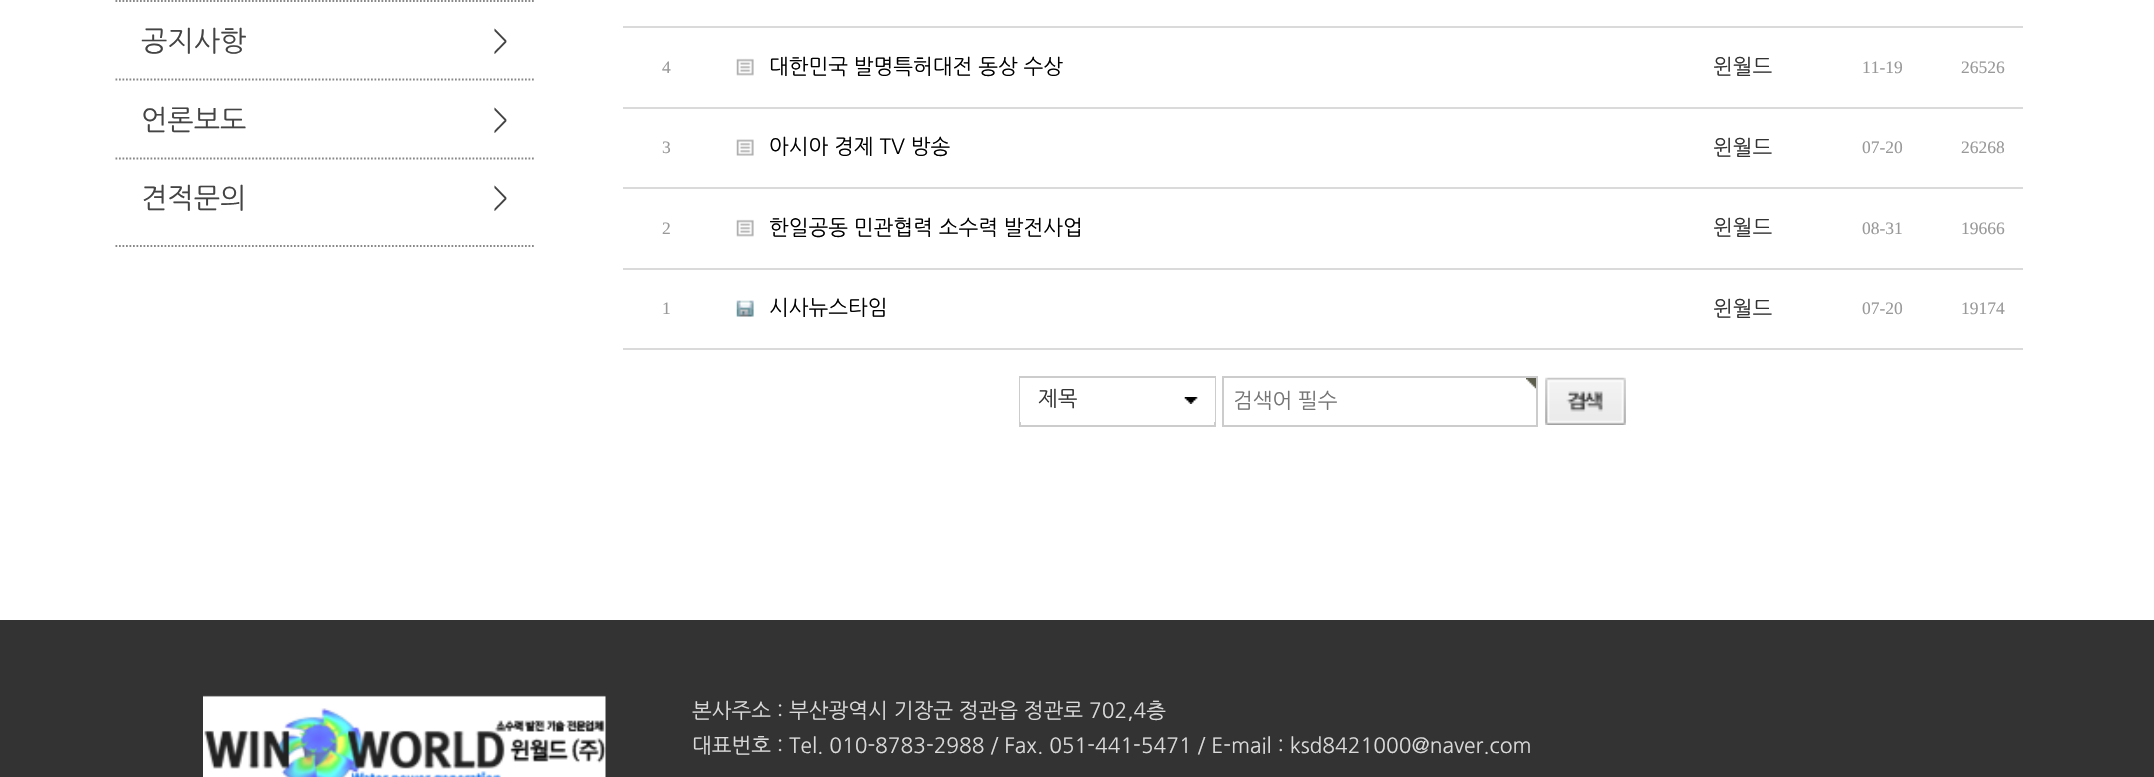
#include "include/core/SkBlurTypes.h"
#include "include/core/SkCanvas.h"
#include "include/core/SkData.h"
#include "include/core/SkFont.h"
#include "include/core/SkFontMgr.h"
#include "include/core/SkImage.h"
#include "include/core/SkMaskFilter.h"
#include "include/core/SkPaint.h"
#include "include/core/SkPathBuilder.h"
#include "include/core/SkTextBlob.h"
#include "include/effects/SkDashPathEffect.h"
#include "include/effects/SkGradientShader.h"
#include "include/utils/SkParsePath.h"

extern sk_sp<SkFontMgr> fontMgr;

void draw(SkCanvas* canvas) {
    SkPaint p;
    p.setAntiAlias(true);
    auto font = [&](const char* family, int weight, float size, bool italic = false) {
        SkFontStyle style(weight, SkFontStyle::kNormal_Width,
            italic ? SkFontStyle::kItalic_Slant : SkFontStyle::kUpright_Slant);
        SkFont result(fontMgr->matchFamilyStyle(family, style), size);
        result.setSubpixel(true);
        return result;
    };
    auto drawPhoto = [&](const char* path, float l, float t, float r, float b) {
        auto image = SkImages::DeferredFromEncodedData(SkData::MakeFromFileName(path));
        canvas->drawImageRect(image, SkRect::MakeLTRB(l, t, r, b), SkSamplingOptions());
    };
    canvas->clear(0xFFFFFFFF);
    p.setStyle(SkPaint::kStroke_Style);
    p.setStrokeWidth(1.8f);
    p.setColor(0xFF888888);
    p.setPathEffect(SkDashPathEffect::Make({{1.75f, 1.75f}}, 0));
    canvas->drawPath(SkPathBuilder().moveTo(115.5f, 246).lineTo(535.5f, 246).detach(), p);
    p.setPathEffect(nullptr);
    p.setPathEffect(SkDashPathEffect::Make({{1.75f, 1.75f}}, 0));
    canvas->drawPath(SkPathBuilder().moveTo(115.5f, 1).lineTo(535.5f, 1).detach(), p);
    p.setPathEffect(nullptr);
    auto font1 = font("NanumGothic", 400, 28);
    p.setStyle(SkPaint::kFill_Style);
    p.setColor(0xFF444444);
    canvas->drawString("공지사항", 141, 51, font1, p);
    canvas->drawString(">", 493, 51, font1, p);
    p.setStyle(SkPaint::kStroke_Style);
    p.setColor(0xFF888888);
    p.setPathEffect(SkDashPathEffect::Make({{1.75f, 1.75f}}, 0));
    canvas->drawPath(SkPathBuilder().moveTo(115.5f, 79.5f).lineTo(535.5f, 79.5f).detach(), p);
    p.setPathEffect(nullptr);
    p.setStyle(SkPaint::kFill_Style);
    p.setColor(0xFF444444);
    canvas->drawString("언론보도", 141, 130, font1, p);
    canvas->drawString(">", 493, 130, font1, p);
    p.setStyle(SkPaint::kStroke_Style);
    p.setColor(0xFF888888);
    p.setPathEffect(SkDashPathEffect::Make({{1.75f, 1.75f}}, 0));
    canvas->drawPath(SkPathBuilder().moveTo(115.5f, 158.5f).lineTo(535.5f, 158.5f).detach(), p);
    p.setPathEffect(nullptr);
    p.setStyle(SkPaint::kFill_Style);
    p.setColor(0xFF444444);
    canvas->drawString("견적문의", 141, 208, font1, p);
    canvas->drawString(">", 493, 208, font1, p);
    p.setColor(0xFFDADADA);
    canvas->drawRect(SkRect::MakeLTRB(623, 26, 2023, 28), p);
    canvas->drawRect(SkRect::MakeLTRB(623, 107, 2023, 109), p);
    auto font2 = font("Liberation Serif", 400, 17.5f);
    p.setColor(0xFF999999);
    canvas->drawString("4", 662, 73, font2, p);
    drawPhoto("media/1.png", 736, 58, 754, 76);
    auto font3 = font("NanumGothic", 400, 21);
    p.setColor(0xFF000000);
    canvas->drawString("대한민국 발명특허대전 동상 수상", 769, 74, font3, p);
    p.setColor(0xFF333333);
    canvas->drawString("윈월드", 1713, 74, font3, p);
    p.setColor(0xFF999999);
    canvas->drawString("11-19", 1862, 73, font2, p);
    canvas->drawString("26526", 1961, 73, font2, p);
    p.setColor(0xFFDADADA);
    canvas->drawRect(SkRect::MakeLTRB(623, 187, 2023, 189), p);
    p.setColor(0xFF999999);
    canvas->drawString("3", 662, 153, font2, p);
    drawPhoto("media/2.png", 736, 139, 754, 156);
    p.setColor(0xFF000000);
    canvas->drawString("아시아 경제 TV 방송", 769, 154, font3, p);
    p.setColor(0xFF333333);
    canvas->drawString("윈월드", 1713, 155, font3, p);
    p.setColor(0xFF999999);
    canvas->drawString("07-20", 1862, 153, font2, p);
    canvas->drawString("26268", 1961, 153, font2, p);
    p.setColor(0xFFDADADA);
    canvas->drawRect(SkRect::MakeLTRB(623, 268, 2023, 270), p);
    p.setColor(0xFF999999);
    canvas->drawString("2", 662, 234, font2, p);
    drawPhoto("media/1.png", 736, 219, 754, 237);
    p.setColor(0xFF000000);
    canvas->drawString("한일공동 민관협력 소수력 발전사업", 769, 235, font3, p);
    p.setColor(0xFF333333);
    canvas->drawString("윈월드", 1713, 235, font3, p);
    p.setColor(0xFF999999);
    canvas->drawString("08-31", 1862, 234, font2, p);
    canvas->drawString("19666", 1961, 234, font2, p);
    p.setColor(0xFFDADADA);
    canvas->drawRect(SkRect::MakeLTRB(623, 348, 2023, 350), p);
    p.setColor(0xFF999999);
    canvas->drawString("1", 662, 314, font2, p);
    drawPhoto("media/3.png", 736, 300, 754, 317);
    p.setColor(0xFF000000);
    canvas->drawString("시사뉴스타임", 769, 315, font3, p);
    p.setColor(0xFF333333);
    canvas->drawString("윈월드", 1713, 316, font3, p);
    p.setColor(0xFF999999);
    canvas->drawString("07-20", 1862, 314, font2, p);
    canvas->drawString("19174", 1961, 314, font2, p);
    p.setStyle(SkPaint::kStroke_Style);
    p.setStrokeWidth(2);
    p.setColor(0xFFCCCCCC);
    canvas->drawRect(SkRect::MakeLTRB(1020, 377, 1215, 426), p);
    p.setStyle(SkPaint::kFill_Style);
    p.setColor(0xFFFFFFFF);
    canvas->drawRect(SkRect::MakeLTRB(1020, 378, 1215, 422), p);
    drawPhoto("media/4.png", 1184, 397, 1198, 404);
    p.setColor(0xFF333333);
    canvas->drawString("제목", 1038, 406, font3, p);
    drawPhoto("media/5.png", 1526, 378, 1536, 389);
    p.setStyle(SkPaint::kStroke_Style);
    p.setColor(0xFFCCCCCC);
    canvas->drawRect(SkRect::MakeLTRB(1223, 377, 1537, 426), p);
    p.setStyle(SkPaint::kFill_Style);
    p.setColor(0xFF757575);
    canvas->drawString("검색어 필수", 1233, 408, font3, p);
    drawPhoto("media/6.png", 1545, 377, 1626, 425);
    p.setColor(0xFF333333);
    canvas->drawRect(SkRect::MakeLTRB(0, 620, 2154, 777), p);
    drawPhoto("media/7.png", 203, 695, 606, 777);
    p.setColor(0xFFDADADA);
    canvas->drawString("본사주소 : 부산광역시 기장군 정관읍 정관로 702,4층", 692, 718, font3, p);
    canvas->drawString("대표번호 : Tel. 010-8783-2988 / Fax. 051-441-5471 / E-mail : ksd8421000@naver.com", 692, 753, font3, p);
}
